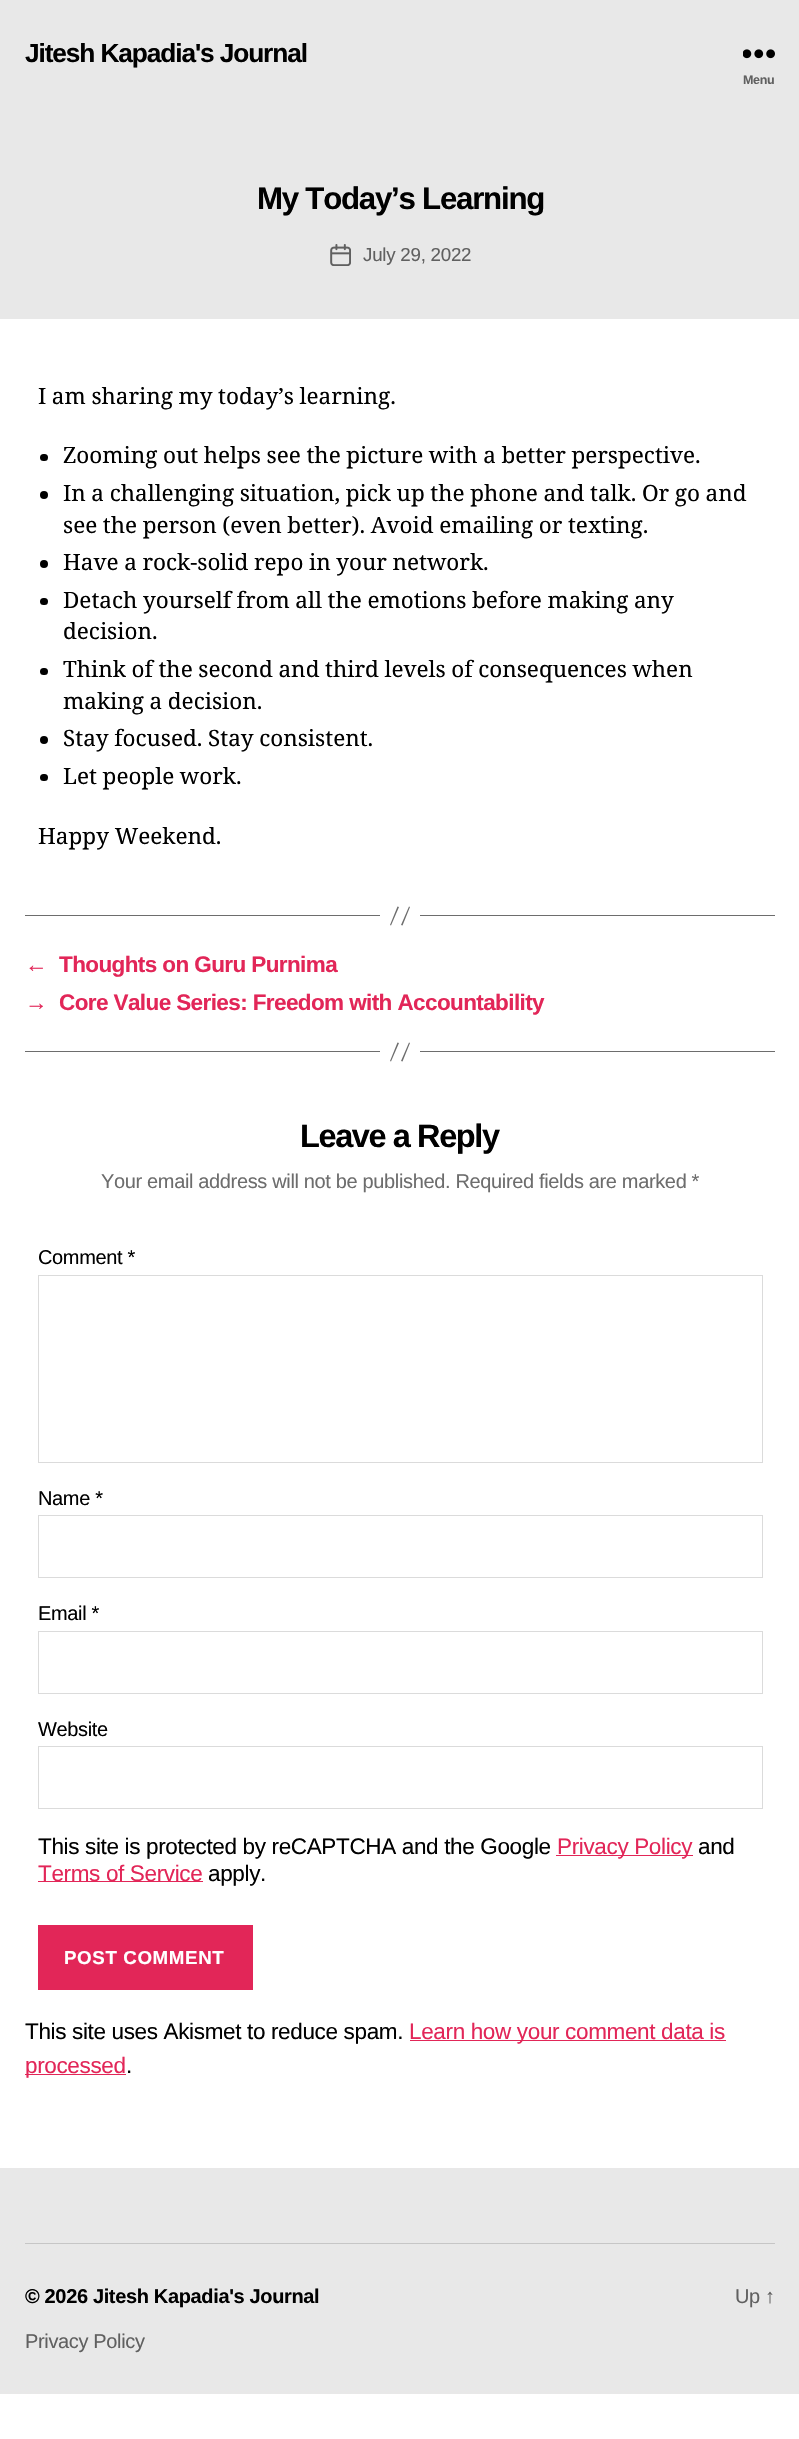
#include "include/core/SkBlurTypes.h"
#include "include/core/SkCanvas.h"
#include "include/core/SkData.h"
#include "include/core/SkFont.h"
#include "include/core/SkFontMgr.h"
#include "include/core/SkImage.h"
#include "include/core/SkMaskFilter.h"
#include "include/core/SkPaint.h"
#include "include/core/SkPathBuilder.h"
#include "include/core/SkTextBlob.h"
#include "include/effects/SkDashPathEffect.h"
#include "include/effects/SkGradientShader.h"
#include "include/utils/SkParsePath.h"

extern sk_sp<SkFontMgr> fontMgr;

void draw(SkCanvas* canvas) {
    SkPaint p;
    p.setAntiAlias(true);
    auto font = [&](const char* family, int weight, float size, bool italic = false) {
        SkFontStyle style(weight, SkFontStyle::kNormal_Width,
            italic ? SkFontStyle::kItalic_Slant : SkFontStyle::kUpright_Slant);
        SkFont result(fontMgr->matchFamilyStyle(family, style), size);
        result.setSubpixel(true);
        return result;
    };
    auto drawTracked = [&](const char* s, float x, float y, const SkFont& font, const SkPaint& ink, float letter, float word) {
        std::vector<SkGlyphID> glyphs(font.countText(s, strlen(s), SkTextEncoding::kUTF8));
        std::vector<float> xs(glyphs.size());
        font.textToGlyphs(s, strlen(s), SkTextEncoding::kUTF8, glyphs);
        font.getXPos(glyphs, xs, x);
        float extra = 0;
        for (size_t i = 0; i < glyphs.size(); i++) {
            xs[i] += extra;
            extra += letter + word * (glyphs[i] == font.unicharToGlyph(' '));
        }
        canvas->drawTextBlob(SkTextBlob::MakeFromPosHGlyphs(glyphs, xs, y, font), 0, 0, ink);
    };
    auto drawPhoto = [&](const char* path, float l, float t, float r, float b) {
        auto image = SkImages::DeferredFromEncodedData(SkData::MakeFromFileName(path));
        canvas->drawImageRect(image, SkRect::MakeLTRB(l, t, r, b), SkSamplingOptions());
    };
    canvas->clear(0xFFFFFFFF);
    p.setColor(0xFFE8E8E8);
    canvas->drawRect(SkRect::MakeLTRB(0, 0, 799, 319), p);
    auto font1 = font("Liberation Sans", 700, 26.25f);
    p.setColor(0xFF000000);
    drawTracked("Jitesh Kapadia's Journal", 25, 62, font1, p, -1.1f, 0);
    drawPhoto("media/1.png", 743, 49, 775, 59);
    auto font2 = font("Liberation Sans", 700, 12.5f);
    p.setColor(0xFF606060);
    drawTracked("Menu", 743, 84, font2, p, -0.35f, 0);
    auto font3 = font("Liberation Sans", 700, 31.25f);
    p.setColor(0xFF000000);
    drawTracked("My Today’s Learning", 257, 209, font3, p, -1.25f, 0);
    drawPhoto("media/2.png", 330, 244, 351, 266);
    auto font4 = font("Liberation Sans", 400, 18.75f);
    p.setColor(0xFF606060);
    drawTracked("July 29, 2022", 363, 261, font4, p, -0.25f, 0);
    auto font5 = font("Noto Serif", 400, 22.5f);
    p.setColor(0xFF000000);
    drawTracked("I am sharing my today’s learning.", 38, 404, font5, p, 0, -0.25f);
    canvas->drawRoundRect(SkRect::MakeLTRB(40, 454, 48, 461), 3.5f, 3.5f, p);
    drawTracked("Zooming out helps see the picture with a better perspective.", 63, 463, font5, p, 0, -0.25f);
    canvas->drawCircle(44, 495, 4, p);
    drawTracked("In a challenging situation, pick up the phone and talk. Or go and", 63, 501, font5, p, 0, -0.25f);
    drawTracked("see the person (even better). Avoid emailing or texting.", 63, 533, font5, p, 0, -0.25f);
    canvas->drawCircle(44, 564, 4, p);
    drawTracked("Have a rock-solid repo in your network.", 63, 570, font5, p, 0, -0.25f);
    canvas->drawRoundRect(SkRect::MakeLTRB(40, 598, 48, 605), 3.5f, 3.5f, p);
    drawTracked("Detach yourself from all the emotions before making any", 63, 608, font5, p, 0, -0.25f);
    canvas->drawString("decision.", 63, 639, font5, p);
    canvas->drawRoundRect(SkRect::MakeLTRB(40, 668, 48, 675), 3.5f, 3.5f, p);
    drawTracked("Think of the second and third levels of consequences when", 63, 677, font5, p, 0, -0.25f);
    drawTracked("making a decision.", 63, 709, font5, p, 0, -0.25f);
    canvas->drawCircle(44, 740, 4, p);
    drawTracked("Stay focused. Stay consistent.", 63, 746, font5, p, 0, -0.25f);
    canvas->drawRoundRect(SkRect::MakeLTRB(40, 774, 48, 781), 3.5f, 3.5f, p);
    drawTracked("Let people work.", 63, 784, font5, p, 0, -0.25f);
    canvas->drawString("Happy Weekend.", 38, 844, font5, p);
    p.setColor(0xFF6D6D6D);
    canvas->drawRect(SkRect::MakeLTRB(420, 915, 775, 916), p);
    canvas->drawRect(SkRect::MakeLTRB(25, 915, 380, 916), p);
    canvas->drawPath(SkPathBuilder().moveTo(397.5f, 906.5f).lineTo(399, 907).lineTo(391, 925.5f).lineTo(390, 925).close().moveTo(409, 906.5f).lineTo(410, 907).lineTo(402.5f, 925.5f).lineTo(401, 925).close().detach(), p);
    auto font6 = font("Liberation Sans", 700, 22.5f);
    p.setColor(0xFFE22658);
    {
        const struct { const char* s; float x, y; } items[] = {
            {"←", 25, 972},
            {"Thoughts on Guru Purnima", 59, 972},
            {"→", 25, 1010},
            {"Core Value Series: Freedom with Accountability", 59, 1010},
        };
        for (auto [s, x, y] : items) {
            drawTracked(s, x, y, font6, p, -0.6f, 0);
        }
    }
    p.setColor(0xFF6D6D6D);
    canvas->drawRect(SkRect::MakeLTRB(420, 1051, 775, 1052), p);
    canvas->drawRect(SkRect::MakeLTRB(25, 1051, 380, 1052), p);
    canvas->drawPath(SkPathBuilder().moveTo(397.5f, 1042.5f).lineTo(399, 1043).lineTo(391, 1061.5f).lineTo(390, 1061).close().moveTo(409, 1042.5f).lineTo(410, 1043).lineTo(402.5f, 1061.5f).lineTo(401, 1061).close().detach(), p);
    auto font7 = font("Liberation Sans", 700, 32.5f);
    p.setColor(0xFF000000);
    drawTracked("Leave a Reply", 300, 1147, font7, p, -1.4f, 0);
    auto font8 = font("Liberation Sans", 400, 20);
    p.setColor(0xFF6D6D6D);
    drawTracked("Your email address will not be published. Required fields are marked *", 101, 1188, font8, p, -0.35f, 0);
    p.setColor(0xFF000000);
    drawTracked("Comment *", 38, 1264, font8, p, -0.35f, 0);
    p.setStyle(SkPaint::kStroke_Style);
    p.setStrokeWidth(1);
    p.setColor(0xFFDBDBDB);
    canvas->drawRect(SkRect::MakeLTRB(38.5f, 1275.5f, 762.5f, 1462.5f), p);
    p.setStyle(SkPaint::kFill_Style);
    p.setColor(0xFF000000);
    drawTracked("Name *", 38, 1505, font8, p, -0.35f, 0);
    p.setStyle(SkPaint::kStroke_Style);
    p.setColor(0xFFDBDBDB);
    canvas->drawRect(SkRect::MakeLTRB(38.5f, 1515.5f, 762.5f, 1577.5f), p);
    p.setStyle(SkPaint::kFill_Style);
    p.setColor(0xFF000000);
    drawTracked("Email *", 38, 1620, font8, p, -0.35f, 0);
    p.setStyle(SkPaint::kStroke_Style);
    p.setColor(0xFFDBDBDB);
    canvas->drawRect(SkRect::MakeLTRB(38.5f, 1631.5f, 762.5f, 1693.5f), p);
    p.setStyle(SkPaint::kFill_Style);
    p.setColor(0xFF000000);
    drawTracked("Website", 38, 1736, font8, p, -0.35f, 0);
    p.setStyle(SkPaint::kStroke_Style);
    p.setColor(0xFFDBDBDB);
    canvas->drawRect(SkRect::MakeLTRB(38.5f, 1746.5f, 762.5f, 1808.5f), p);
    auto font9 = font("Liberation Sans", 400, 22.5f);
    p.setStyle(SkPaint::kFill_Style);
    p.setColor(0xFF000000);
    drawTracked("This site is protected by reCAPTCHA and the Google", 38, 1854, font9, p, -0.35f, 0);
    p.setColor(0xFFE22658);
    canvas->drawRect(SkRect::MakeLTRB(556, 1855, 693, 1856), p);
    drawTracked("Privacy Policy", 557, 1854, font9, p, -0.35f, 0);
    p.setColor(0xFF000000);
    drawTracked("and", 698, 1854, font9, p, -0.35f, 0);
    p.setColor(0xFFE22658);
    canvas->drawRect(SkRect::MakeLTRB(38, 1881, 203, 1882), p);
    drawTracked("Terms of Service", 38, 1881, font9, p, -0.35f, 0);
    p.setColor(0xFF000000);
    drawTracked("apply.", 208, 1881, font9, p, -0.35f, 0);
    p.setColor(0xFFE22658);
    canvas->drawRect(SkRect::MakeLTRB(38, 1925, 253, 1990), p);
    auto font10 = font("Liberation Sans", 700, 18.75f);
    p.setColor(0xFFFFFFFF);
    drawTracked("POST COMMENT", 64, 1964, font10, p, 0.6f, 0);
    p.setColor(0xFF000000);
    drawTracked("This site uses Akismet to reduce spam.", 25, 2039, font9, p, -0.35f, 0);
    p.setColor(0xFFE22658);
    canvas->drawRect(SkRect::MakeLTRB(410, 2040, 726, 2041), p);
    drawTracked("Learn how your comment data is", 409, 2039, font9, p, -0.35f, 0);
    canvas->drawRect(SkRect::MakeLTRB(25, 2074, 126, 2075), p);
    drawTracked("processed", 25, 2073, font9, p, -0.35f, 0);
    p.setColor(0xFF000000);
    drawTracked(".", 126, 2073, font9, p, -0.35f, 0);
    p.setColor(0xFFE8E8E8);
    canvas->drawRect(SkRect::MakeLTRB(0, 2168, 799, 2394), p);
    p.setColor(0xFFC6C6C6);
    canvas->drawRect(SkRect::MakeLTRB(25, 2243, 775, 2244), p);
    auto font11 = font("Liberation Sans", 700, 20);
    p.setColor(0xFF000000);
    drawTracked("© 2026 Jitesh Kapadia's Journal", 25, 2303, font11, p, -0.35f, 0);
    p.setColor(0xFF606060);
    drawTracked("Privacy Policy", 25, 2348, font8, p, -0.35f, 0);
    drawTracked("Up ↑", 735, 2303, font8, p, -0.35f, 0);
}
